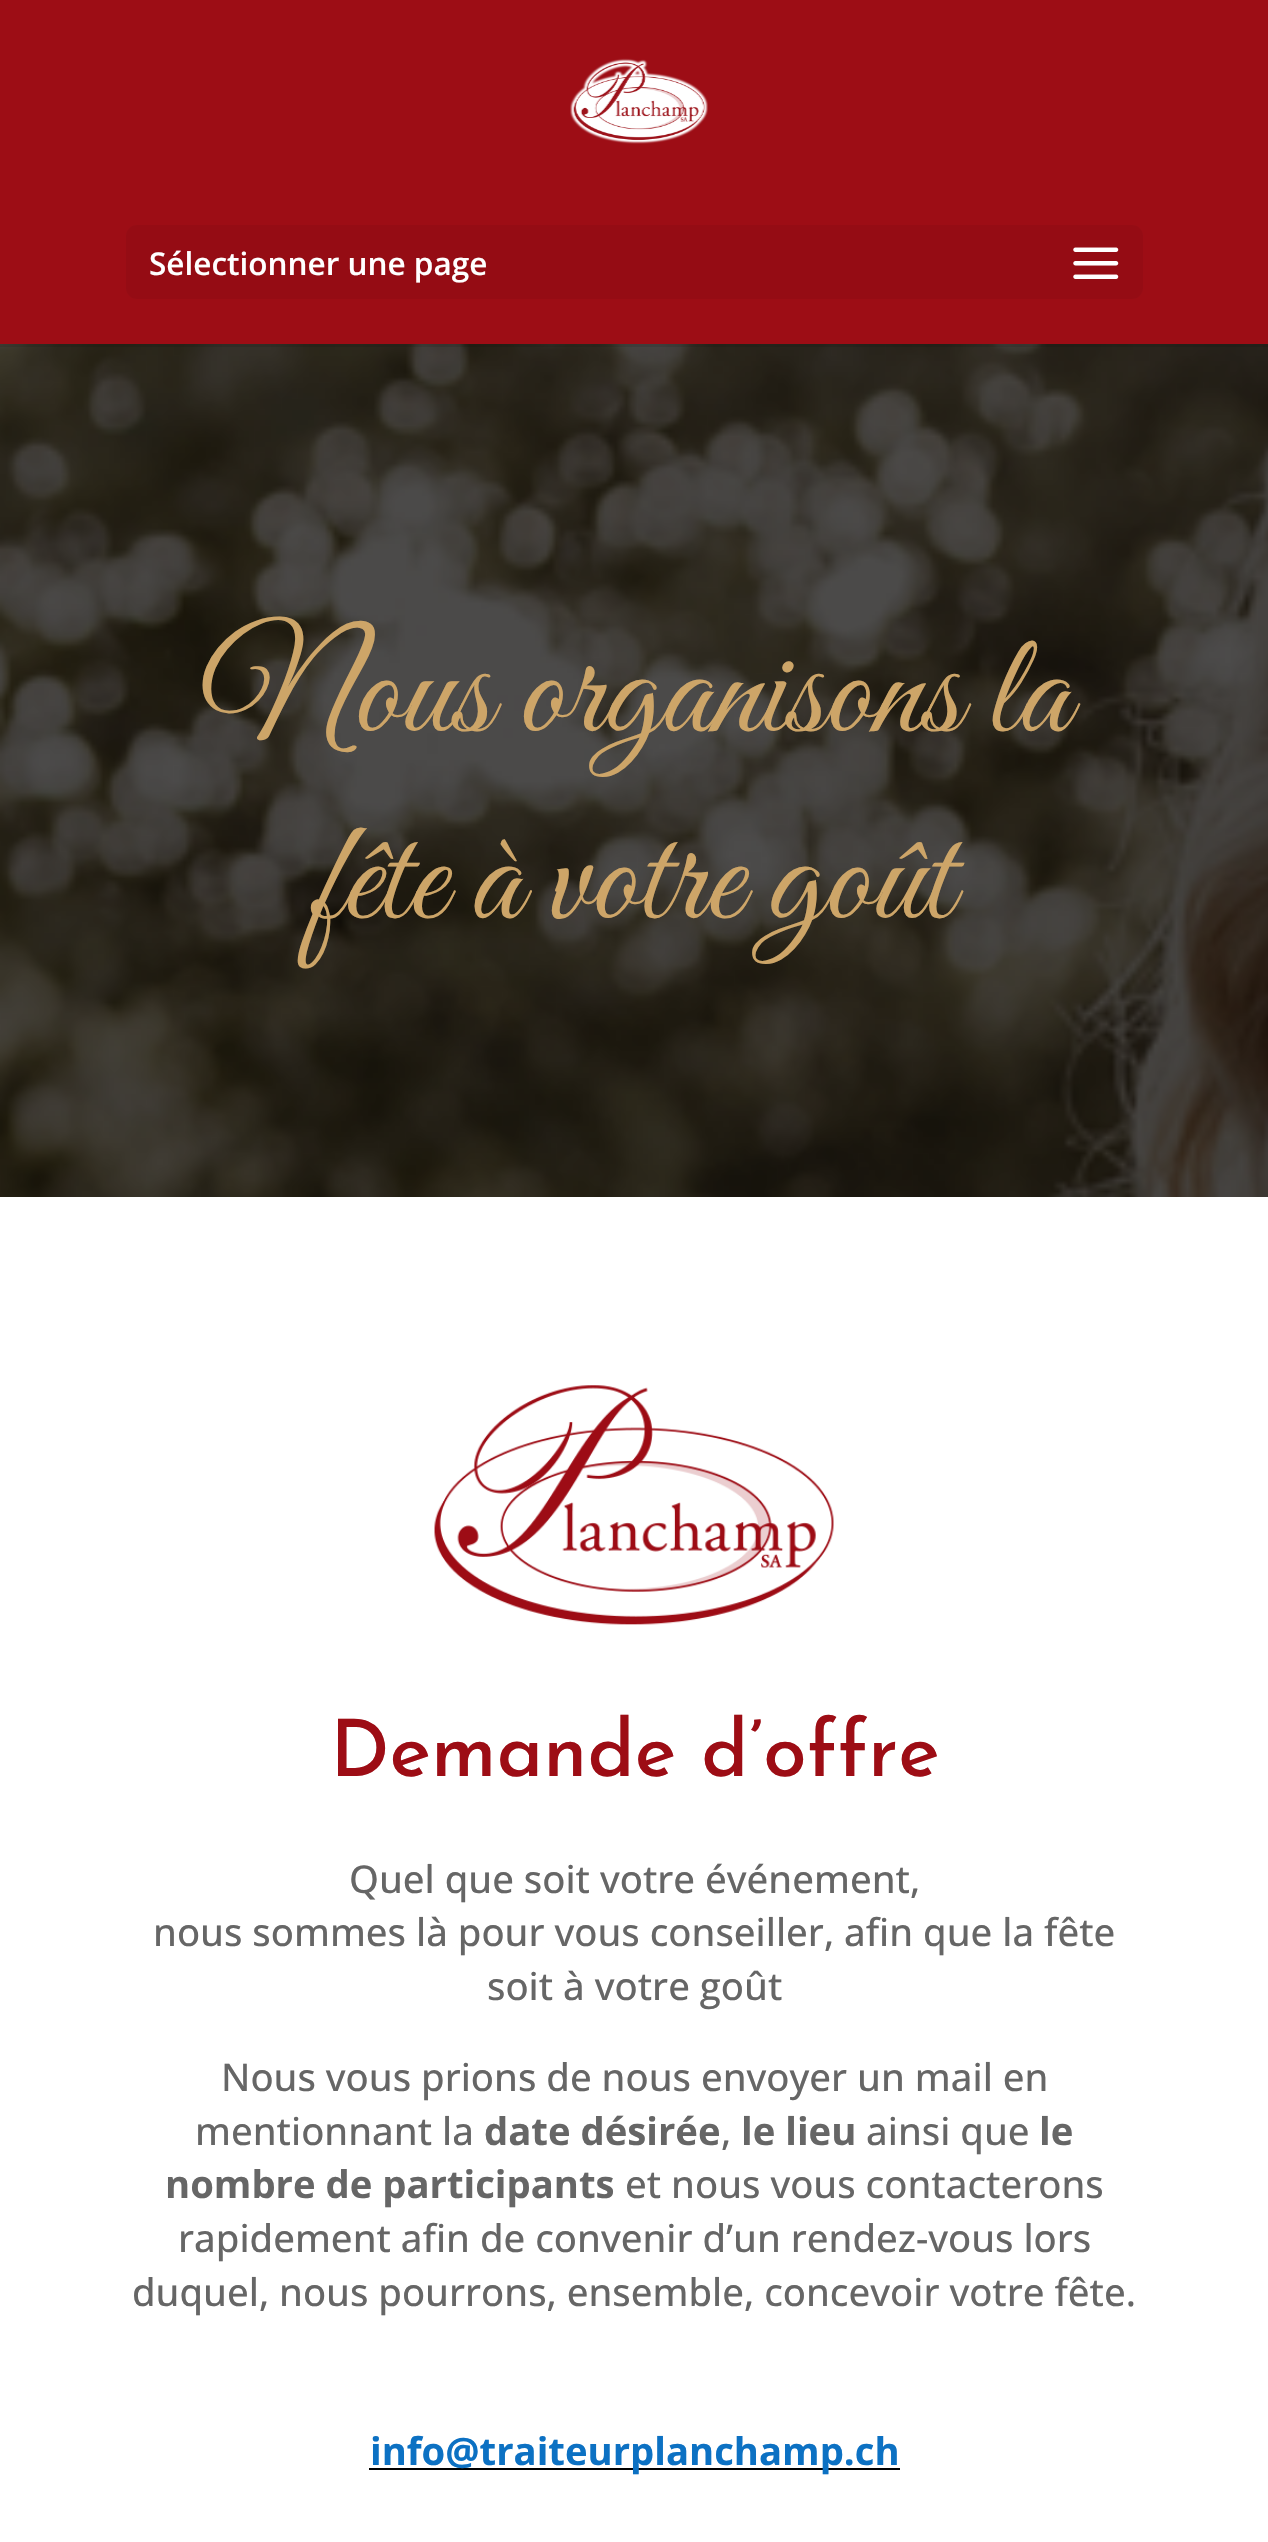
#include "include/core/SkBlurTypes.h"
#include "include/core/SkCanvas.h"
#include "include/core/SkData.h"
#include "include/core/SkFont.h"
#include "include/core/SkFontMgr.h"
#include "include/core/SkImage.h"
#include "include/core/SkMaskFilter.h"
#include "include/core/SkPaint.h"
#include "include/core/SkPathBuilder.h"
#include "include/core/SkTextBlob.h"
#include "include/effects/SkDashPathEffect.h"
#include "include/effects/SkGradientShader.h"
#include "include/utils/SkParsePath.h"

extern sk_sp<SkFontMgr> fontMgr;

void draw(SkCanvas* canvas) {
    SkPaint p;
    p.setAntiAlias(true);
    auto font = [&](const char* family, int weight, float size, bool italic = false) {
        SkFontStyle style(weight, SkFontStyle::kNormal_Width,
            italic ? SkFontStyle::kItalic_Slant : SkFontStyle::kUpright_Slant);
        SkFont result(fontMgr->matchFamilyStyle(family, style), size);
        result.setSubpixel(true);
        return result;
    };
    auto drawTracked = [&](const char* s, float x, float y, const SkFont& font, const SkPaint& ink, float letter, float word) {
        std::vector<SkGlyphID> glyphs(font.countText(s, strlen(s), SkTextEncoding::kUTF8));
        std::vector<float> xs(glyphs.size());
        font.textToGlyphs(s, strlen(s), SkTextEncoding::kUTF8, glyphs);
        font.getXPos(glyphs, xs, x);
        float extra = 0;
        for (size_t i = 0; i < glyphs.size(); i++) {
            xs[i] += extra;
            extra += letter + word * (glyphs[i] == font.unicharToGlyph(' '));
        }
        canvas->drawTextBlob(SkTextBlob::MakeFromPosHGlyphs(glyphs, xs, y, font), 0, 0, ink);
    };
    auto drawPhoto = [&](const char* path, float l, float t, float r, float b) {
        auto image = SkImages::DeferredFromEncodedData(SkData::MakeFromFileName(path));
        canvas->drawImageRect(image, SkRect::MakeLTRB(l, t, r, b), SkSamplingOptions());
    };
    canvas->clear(0xFFFFFFFF);
    drawPhoto("media/3.png", 0, 344, 1268, 1197);
    p.setColor(0x1A000000);
    canvas->drawRect(SkRect::MakeLTRB(0, 344, 1268, 347), p);
    p.setColor(0xFF9D0D15);
    canvas->drawRect(SkRect::MakeLTRB(0, 0, 1268, 344), p);
    drawPhoto("media/1.png", 570, 58, 708, 144);
    p.setColor(0xFF950C14);
    canvas->drawRoundRect(SkRect::MakeLTRB(126, 225, 1143, 299), 11, 11, p);
    auto font1 = font("Open Sans", 600, 31.5f);
    p.setColor(0xFFFFFFFF);
    canvas->drawString("Sélectionner une page", 149, 275, font1, p);
    drawPhoto("media/2.png", 1073, 247, 1119, 279);
    auto font2 = font("Great Vibes", 400, 144);
    p.setColor(0xFFCDA568);
    drawTracked("Nous organisons la", 203, 731, font2, p, 0, 2);
    canvas->drawString("fête à votre goût", 315, 918, font2, p);
    drawPhoto("media/4.png", 434, 1385, 834, 1625);
    auto font3 = font("Josefin Sans", 500, 78.75f);
    p.setColor(0xFF9D0D15);
    canvas->drawString("Demande d’offre", 330, 1776, font3, p);
    auto font4 = font("Open Sans", 500, 38.25f);
    p.setColor(0xFF666666);
    {
        const struct { const char* s; float x, y; } items[] = {
            {"Quel que soit votre événement,", 349, 1893},
            {"nous sommes là pour vous conseiller, afin que la fête", 153, 1946},
            {"soit à votre goût", 487, 2000},
            {"Nous vous prions de nous envoyer un mail en", 221, 2091},
            {"mentionnant la", 195, 2145},
        };
        for (auto [s, x, y] : items) {
            canvas->drawString(s, x, y, font4, p);
        }
    }
    auto font5 = font("Open Sans", 700, 38.25f);
    canvas->drawString("date désirée", 484, 2145, font5, p);
    canvas->drawString(",", 721, 2145, font4, p);
    canvas->drawString("le lieu", 741, 2145, font5, p);
    canvas->drawString("ainsi que", 866, 2145, font4, p);
    canvas->drawString("le", 1039, 2145, font5, p);
    canvas->drawString("nombre de participants", 165, 2198, font5, p);
    {
        const struct { const char* s; float x, y; } items[] = {
            {"et nous vous contacterons", 625, 2198},
            {"rapidement afin de convenir d’un rendez-vous lors", 178, 2252},
            {"duquel, nous pourrons, ensemble, concevoir votre fête.", 132, 2306},
        };
        for (auto [s, x, y] : items) {
            canvas->drawString(s, x, y, font4, p);
        }
    }
    p.setColor(0xFF000000);
    canvas->drawRect(SkRect::MakeLTRB(369, 2468, 900, 2470), p);
    p.setColor(0xFF0C71C3);
    canvas->drawString("info@traiteurplanchamp.ch", 370, 2465, font5, p);
}
